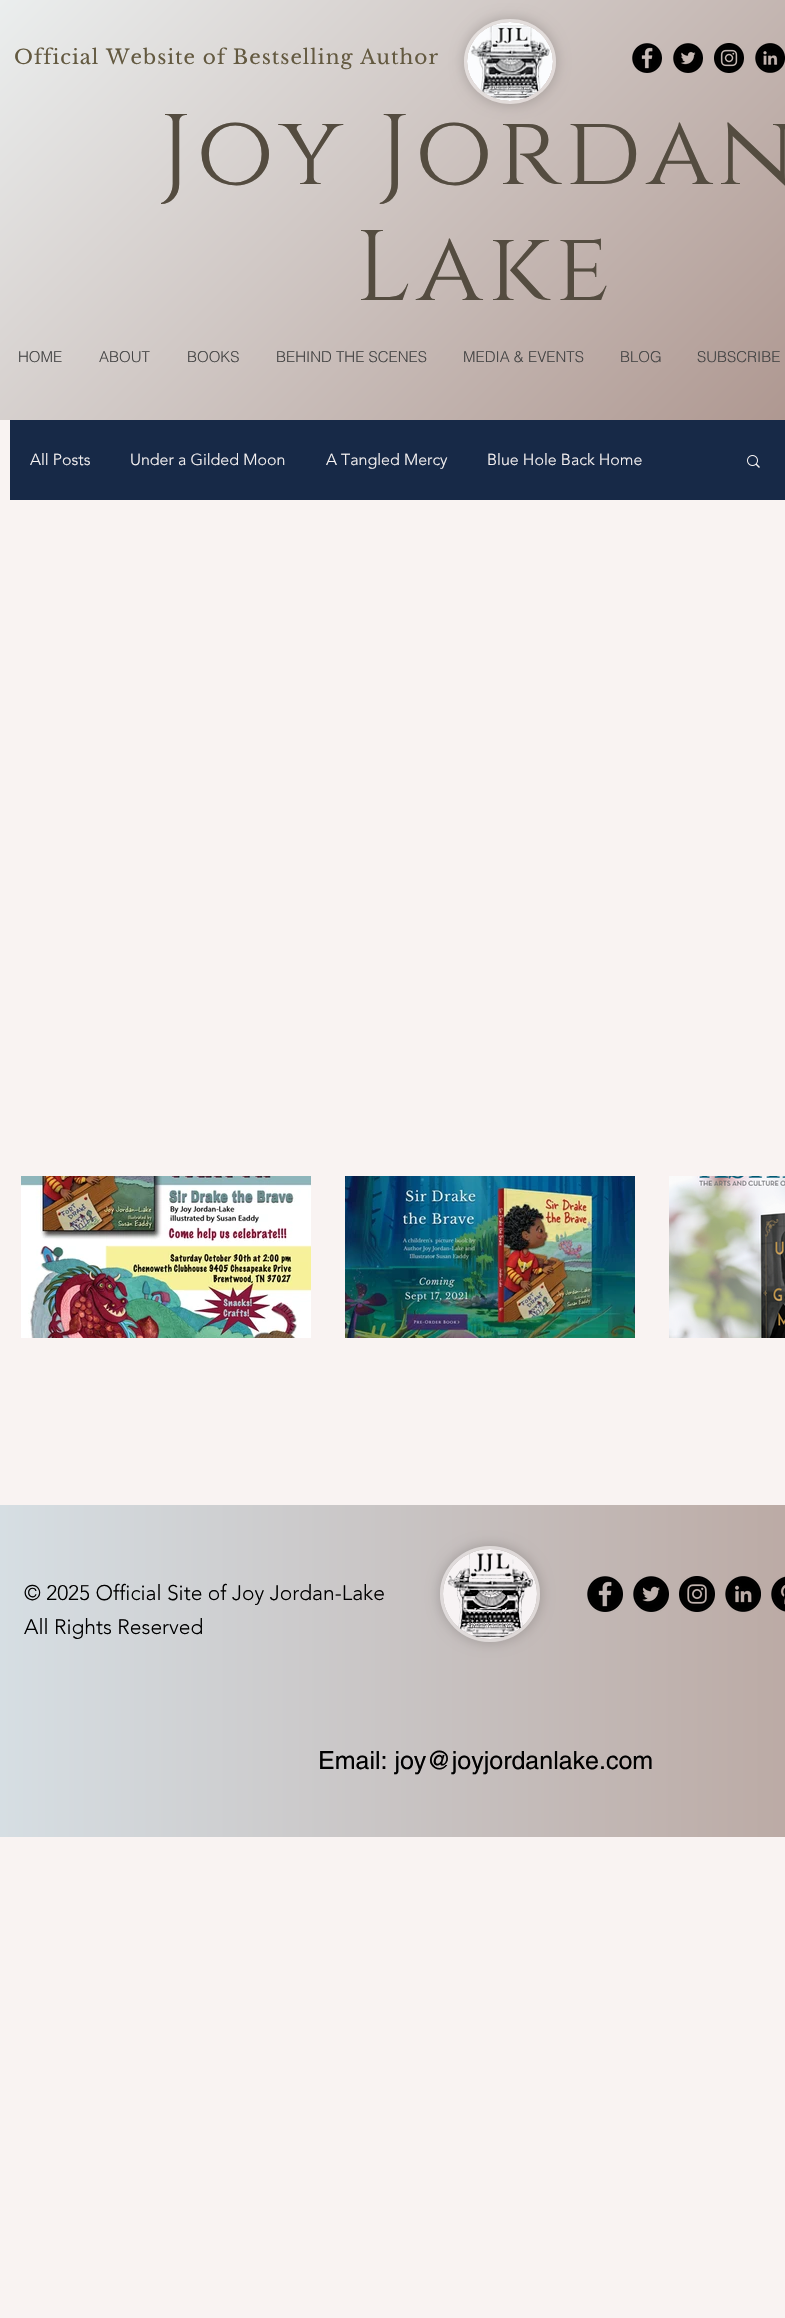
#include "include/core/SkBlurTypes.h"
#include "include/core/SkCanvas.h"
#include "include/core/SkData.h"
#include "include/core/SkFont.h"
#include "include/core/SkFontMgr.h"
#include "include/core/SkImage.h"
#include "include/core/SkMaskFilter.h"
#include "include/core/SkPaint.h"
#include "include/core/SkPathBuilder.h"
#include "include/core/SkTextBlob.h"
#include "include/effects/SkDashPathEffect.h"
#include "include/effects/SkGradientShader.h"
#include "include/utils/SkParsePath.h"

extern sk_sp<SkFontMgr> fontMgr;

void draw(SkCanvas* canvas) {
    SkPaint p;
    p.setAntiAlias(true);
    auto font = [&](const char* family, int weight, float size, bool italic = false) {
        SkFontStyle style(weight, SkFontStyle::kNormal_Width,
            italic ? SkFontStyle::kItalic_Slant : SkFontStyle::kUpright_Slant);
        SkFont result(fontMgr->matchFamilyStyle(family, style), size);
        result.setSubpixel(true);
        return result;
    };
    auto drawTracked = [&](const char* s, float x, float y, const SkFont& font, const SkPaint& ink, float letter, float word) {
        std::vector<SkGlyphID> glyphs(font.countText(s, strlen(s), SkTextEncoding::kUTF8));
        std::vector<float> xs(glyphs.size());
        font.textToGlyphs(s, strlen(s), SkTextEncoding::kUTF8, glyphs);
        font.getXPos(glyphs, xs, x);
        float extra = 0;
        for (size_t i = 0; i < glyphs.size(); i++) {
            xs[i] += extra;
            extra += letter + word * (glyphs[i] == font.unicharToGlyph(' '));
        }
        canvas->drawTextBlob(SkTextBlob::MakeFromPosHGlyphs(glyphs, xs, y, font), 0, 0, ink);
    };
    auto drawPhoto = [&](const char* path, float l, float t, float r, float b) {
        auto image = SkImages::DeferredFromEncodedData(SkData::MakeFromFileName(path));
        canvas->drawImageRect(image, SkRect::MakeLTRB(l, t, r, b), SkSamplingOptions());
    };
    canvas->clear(0xFFF9F3F2);
    {
        const SkColor colors[] = {0xFFEBEEEE, 0xFFA58A82};
        const float stops[] = {0, 1};
        const SkPoint ends[] = {{140, -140}, {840, 560}};
        p.setShader(SkGradientShader::MakeLinear(ends, colors, stops, 2, SkTileMode::kClamp));
        p.setAlpha(255);
    }
    canvas->drawRect(SkRect::MakeLTRB(0, 0, 785, 420), p);
    auto font1 = font("Libre Baskerville", 400, 20);
    p.setShader(nullptr);
    p.setColor(0xFF635940);
    drawTracked("Official Website of Bestselling Author", 14, 64, font1, p, 1, 0);
    canvas->save();
    canvas->clipPath(SkPathBuilder(SkPathFillType::kEvenOdd).moveTo(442, 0).lineTo(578, 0).lineTo(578, 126).lineTo(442, 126).close().moveTo(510, 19).cubicTo(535.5f, 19, 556, 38, 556, 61.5f).cubicTo(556, 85, 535.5f, 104, 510, 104).cubicTo(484.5f, 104, 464, 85, 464, 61.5f).cubicTo(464, 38, 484.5f, 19, 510, 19).close().detach(), true);
    p.setColor(0x33000000);
    p.setMaskFilter(SkMaskFilter::MakeBlur(kNormal_SkBlurStyle, 7));
    canvas->drawRoundRect(SkRect::MakeLTRB(464, 19, 556, 104), 42.5f, 42.5f, p);
    p.setMaskFilter(nullptr);
    canvas->restore();
    p.setColor(0x4FF6F3F3);
    canvas->drawOval(SkRect::MakeLTRB(464, 19, 556, 104), p);
    p.setStyle(SkPaint::kStroke_Style);
    p.setStrokeWidth(3);
    canvas->drawPath(SkPathBuilder().moveTo(510, 20.5f).cubicTo(534.5f, 20.5f, 554.5f, 39, 554.5f, 61.5f).cubicTo(554.5f, 84, 534.5f, 102.5f, 510, 102.5f).cubicTo(485.5f, 102.5f, 465.5f, 84, 465.5f, 61.5f).cubicTo(465.5f, 39, 485.5f, 20.5f, 510, 20.5f).close().detach(), p);
    drawPhoto("media/1.png", 467, 22, 553, 101);
    drawPhoto("media/2.png", 632, 43, 662, 73);
    drawPhoto("media/3.png", 673, 43, 703, 73);
    drawPhoto("media/4.png", 714, 43, 744, 73);
    drawPhoto("media/5.png", 755, 43, 785, 73);
    auto font2 = font("Cinzel", 400, 100);
    p.setStyle(SkPaint::kFill_Style);
    p.setColor(0xFF544C40);
    drawTracked("Joy Jordan", 159, 184, font2, p, 5, 0);
    drawTracked("Lake", 355, 300, font2, p, 5, 0);
    auto font3 = font("helvetica", 300, 15);
    p.setColor(0xFF444444);
    {
        const struct { const char* s; float x, y; } items[] = {
            {"HOME", 18, 362},
            {"ABOUT", 99, 362},
            {"BOOKS", 187, 362},
            {"BEHIND THE SCENES", 276, 362},
            {"MEDIA & EVENTS", 463, 362},
            {"BLOG", 620, 362},
            {"SUBSCRIBE", 697, 362},
        };
        for (auto [s, x, y] : items) {
            canvas->drawString(s, x, y, font3, p);
        }
    }
    p.setColor(0xFF172947);
    canvas->drawRect(SkRect::MakeLTRB(10, 420, 785, 500), p);
    auto font4 = font("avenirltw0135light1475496", 300, 16);
    p.setColor(0xFFF7F3F3);
    {
        const struct { const char* s; float x, y; } items[] = {
            {"All Posts", 30, 465},
            {"Under a Gilded Moon", 130, 465},
            {"A Tangled Mercy", 326, 465},
            {"Blue Hole Back Home", 487, 465},
        };
        for (auto [s, x, y] : items) {
            canvas->drawString(s, x, y, font4, p);
        }
    }
    drawPhoto("media/6.png", 747, 455, 760, 468);
    drawPhoto("media/7.png", 21, 1176, 311, 1338);
    drawPhoto("media/8.png", 345, 1176, 635, 1338);
    drawPhoto("media/9.png", 669, 1176, 785, 1338);
    {
        const SkColor colors[] = {0xFFD6DEE3, 0xFFB59E96};
        const float stops[] = {0, 1};
        const SkPoint ends[] = {{0, 1671}, {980, 1671}};
        p.setShader(SkGradientShader::MakeLinear(ends, colors, stops, 2, SkTileMode::kClamp));
        p.setAlpha(255);
    }
    canvas->drawRect(SkRect::MakeLTRB(0, 1505, 785, 1837), p);
    auto font5 = font("avenirltw0135light1475496", 300, 21);
    p.setShader(nullptr);
    p.setColor(0xFF000000);
    canvas->drawString("© 2025 Official Site of Joy Jordan-Lake", 24, 1600, font5, p);
    canvas->drawString("All Rights Reserved", 24, 1634, font5, p);
    canvas->save();
    canvas->clipPath(SkPathBuilder(SkPathFillType::kEvenOdd).moveTo(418, 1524).lineTo(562, 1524).lineTo(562, 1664).lineTo(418, 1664).close().moveTo(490, 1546).cubicTo(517.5f, 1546, 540, 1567.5f, 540, 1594).cubicTo(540, 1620.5f, 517.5f, 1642, 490, 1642).cubicTo(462.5f, 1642, 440, 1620.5f, 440, 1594).cubicTo(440, 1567.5f, 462.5f, 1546, 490, 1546).close().detach(), true);
    p.setColor(0x33000000);
    p.setMaskFilter(SkMaskFilter::MakeBlur(kNormal_SkBlurStyle, 7));
    canvas->drawRoundRect(SkRect::MakeLTRB(440, 1546, 540, 1642), 48, 48, p);
    p.setMaskFilter(nullptr);
    canvas->restore();
    p.setColor(0x4FF6F3F3);
    canvas->drawOval(SkRect::MakeLTRB(440, 1546, 540, 1642), p);
    p.setStyle(SkPaint::kStroke_Style);
    canvas->drawPath(SkPathBuilder().moveTo(490, 1547.5f).cubicTo(517, 1547.5f, 538.5f, 1568.5f, 538.5f, 1594).cubicTo(538.5f, 1619.5f, 517, 1640.5f, 490, 1640.5f).cubicTo(463, 1640.5f, 441.5f, 1619.5f, 441.5f, 1594).cubicTo(441.5f, 1568.5f, 463, 1547.5f, 490, 1547.5f).close().detach(), p);
    drawPhoto("media/10.png", 443, 1549, 537, 1639);
    drawPhoto("media/11.png", 587, 1576, 623, 1612);
    drawPhoto("media/12.png", 633, 1576, 669, 1612);
    drawPhoto("media/13.png", 679, 1576, 715, 1612);
    drawPhoto("media/14.png", 725, 1576, 761, 1612);
    drawPhoto("media/15.png", 771, 1576, 785, 1612);
    auto font6 = font("helvetica", 400, 25);
    p.setStyle(SkPaint::kFill_Style);
    p.setColor(0xFF000000);
    canvas->drawString("Email: joy@joyjordanlake.com", 318, 1769, font6, p);
}
